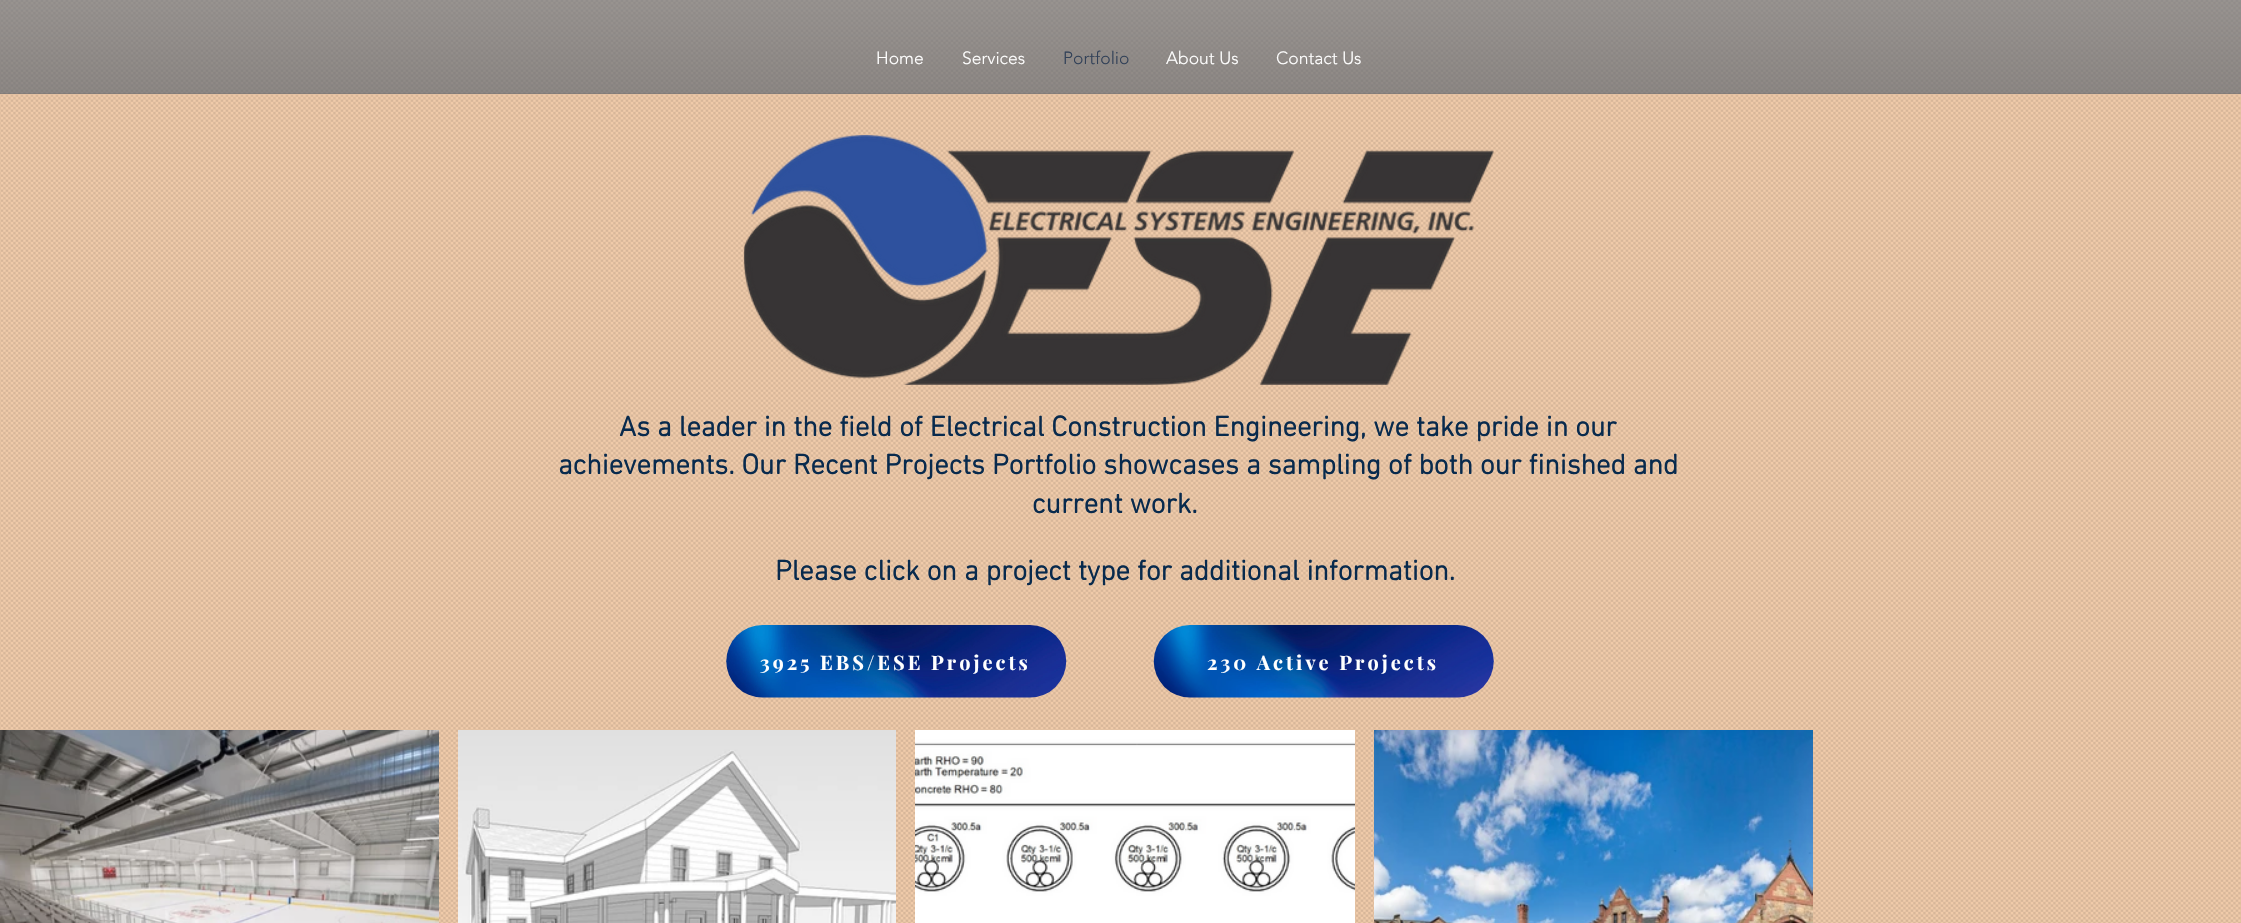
#include "include/core/SkBlurTypes.h"
#include "include/core/SkCanvas.h"
#include "include/core/SkData.h"
#include "include/core/SkFont.h"
#include "include/core/SkFontMgr.h"
#include "include/core/SkImage.h"
#include "include/core/SkMaskFilter.h"
#include "include/core/SkPaint.h"
#include "include/core/SkPathBuilder.h"
#include "include/core/SkTextBlob.h"
#include "include/effects/SkDashPathEffect.h"
#include "include/effects/SkGradientShader.h"
#include "include/utils/SkParsePath.h"

extern sk_sp<SkFontMgr> fontMgr;

void draw(SkCanvas* canvas) {
    SkPaint p;
    p.setAntiAlias(true);
    auto font = [&](const char* family, int weight, float size, bool italic = false) {
        SkFontStyle style(weight, SkFontStyle::kNormal_Width,
            italic ? SkFontStyle::kItalic_Slant : SkFontStyle::kUpright_Slant);
        SkFont result(fontMgr->matchFamilyStyle(family, style), size);
        result.setSubpixel(true);
        return result;
    };
    auto drawTracked = [&](const char* s, float x, float y, const SkFont& font, const SkPaint& ink, float letter, float word) {
        std::vector<SkGlyphID> glyphs(font.countText(s, strlen(s), SkTextEncoding::kUTF8));
        std::vector<float> xs(glyphs.size());
        font.textToGlyphs(s, strlen(s), SkTextEncoding::kUTF8, glyphs);
        font.getXPos(glyphs, xs, x);
        float extra = 0;
        for (size_t i = 0; i < glyphs.size(); i++) {
            xs[i] += extra;
            extra += letter + word * (glyphs[i] == font.unicharToGlyph(' '));
        }
        canvas->drawTextBlob(SkTextBlob::MakeFromPosHGlyphs(glyphs, xs, y, font), 0, 0, ink);
    };
    auto drawPhoto = [&](const char* path, float l, float t, float r, float b) {
        auto image = SkImages::DeferredFromEncodedData(SkData::MakeFromFileName(path));
        canvas->drawImageRect(image, SkRect::MakeLTRB(l, t, r, b), SkSamplingOptions());
    };
    canvas->clear(0xFFF0CBAA);
    drawPhoto("media/1.png", 0, 0, 2241, 923);
    p.setColor(0x961E2D3B);
    canvas->drawRect(SkRect::MakeLTRB(0, 0, 2241, 94), p);
    drawPhoto("media/2.png", 0, 0, 2241, 94);
    auto font1 = font("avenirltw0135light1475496", 300, 17.5f);
    p.setColor(0xFFFFFFFF);
    canvas->drawString("Home", 876, 64, font1, p);
    canvas->drawString("Services", 962, 64, font1, p);
    p.setColor(0xFF324158);
    canvas->drawString("Portfolio", 1063, 64, font1, p);
    p.setColor(0xFFFFFFFF);
    canvas->drawString("About Us", 1166, 64, font1, p);
    canvas->drawString("Contact Us", 1276, 64, font1, p);
    drawPhoto("media/3.png", 743, 135, 1494, 385);
    auto font2 = font("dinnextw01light", 700, 28.75f);
    p.setColor(0xFF082A4D);
    {
        const struct { const char* s; float x, y; } items[] = {
            {"As a leader in the field of Electrical Construction Engineering, we take pride in our", 619, 436},
            {"achievements. Our Recent Projects Portfolio showcases a sampling of both our finished and", 558, 474},
            {"current work.", 1032, 513},
            {"Please click on a project type for additional information.", 775, 580},
        };
        for (auto [s, x, y] : items) {
            canvas->drawString(s, x, y, font2, p);
        }
    }
    drawPhoto("media/4.png", 726, 625, 1067, 698);
    auto font3 = font("Playfair Display", 700, 20);
    p.setColor(0xFFFFFFFF);
    drawTracked("3925 EBS/ESE Projects", 760, 670, font3, p, 3, 0);
    drawPhoto("media/5.png", 1153, 625, 1494, 698);
    drawTracked("230 Active Projects", 1207, 670, font3, p, 3, 0);
    drawPhoto("media/6.png", 0, 730, 439, 923);
    drawPhoto("media/7.png", 458, 730, 896, 923);
    drawPhoto("media/8.png", 915, 730, 1355, 923);
    drawPhoto("media/9.png", 1374, 730, 1813, 923);
}
